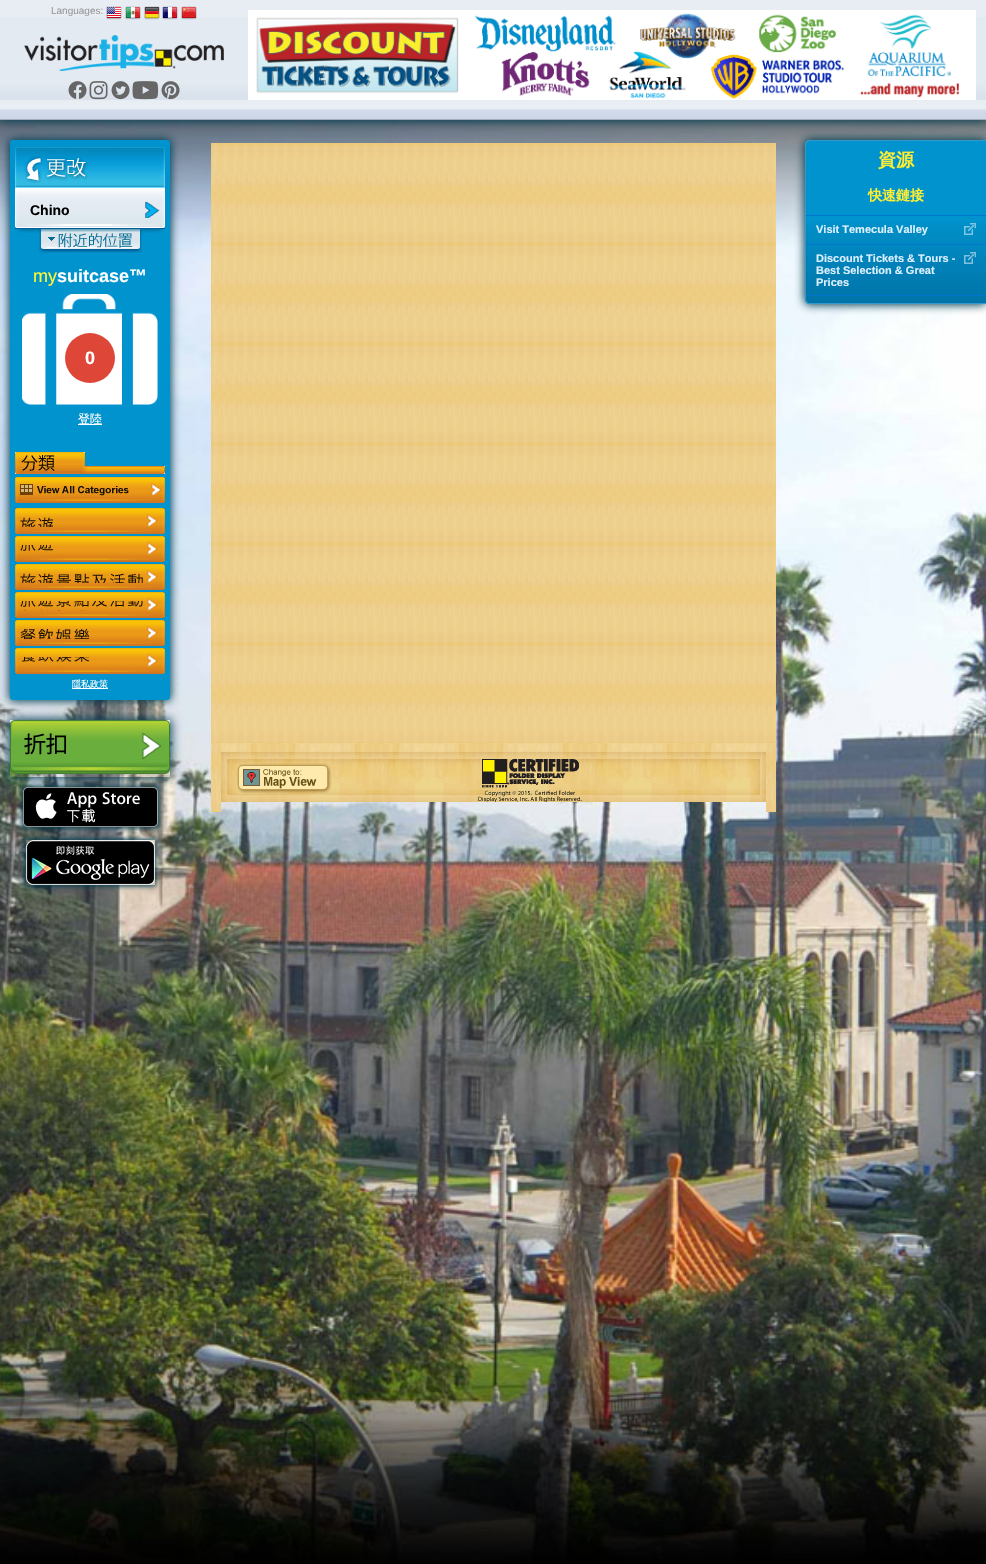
#include "include/core/SkBlurTypes.h"
#include "include/core/SkCanvas.h"
#include "include/core/SkData.h"
#include "include/core/SkFont.h"
#include "include/core/SkFontMgr.h"
#include "include/core/SkImage.h"
#include "include/core/SkMaskFilter.h"
#include "include/core/SkPaint.h"
#include "include/core/SkPathBuilder.h"
#include "include/core/SkTextBlob.h"
#include "include/effects/SkDashPathEffect.h"
#include "include/effects/SkGradientShader.h"
#include "include/utils/SkParsePath.h"

extern sk_sp<SkFontMgr> fontMgr;

void draw(SkCanvas* canvas) {
    SkPaint p;
    p.setAntiAlias(true);
    auto font = [&](const char* family, int weight, float size, bool italic = false) {
        SkFontStyle style(weight, SkFontStyle::kNormal_Width,
            italic ? SkFontStyle::kItalic_Slant : SkFontStyle::kUpright_Slant);
        SkFont result(fontMgr->matchFamilyStyle(family, style), size);
        result.setSubpixel(true);
        return result;
    };
    auto drawPhoto = [&](const char* path, float l, float t, float r, float b) {
        auto image = SkImages::DeferredFromEncodedData(SkData::MakeFromFileName(path));
        canvas->drawImageRect(image, SkRect::MakeLTRB(l, t, r, b), SkSamplingOptions());
    };
    canvas->clear(0xFFFFFFFF);
    drawPhoto("media/14.png", 0, 120, 986, 1564);
    p.setColor(0xFF003C50);
    p.setMaskFilter(SkMaskFilter::MakeBlur(kNormal_SkBlurStyle, 5));
    canvas->drawRect(SkRect::MakeLTRB(-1, -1, 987, 121), p);
    p.setMaskFilter(nullptr);
    p.setColor(0xFFE8EDF3);
    canvas->drawRect(SkRect::MakeLTRB(0, 0, 986, 17), p);
    drawPhoto("media/1.png", 0, 17, 986, 120);
    auto font1 = font("Liberation Sans", 400, 10);
    p.setColor(0xFF999999);
    canvas->drawString("Languages:", 51, 14, font1, p);
    drawPhoto("media/2.png", 106, 6, 122, 20);
    drawPhoto("media/3.png", 125, 6, 141, 20);
    drawPhoto("media/4.png", 144, 6, 160, 20);
    drawPhoto("media/5.png", 162, 6, 178, 20);
    drawPhoto("media/6.png", 181, 6, 197, 20);
    drawPhoto("media/7.png", 248, 10, 976, 100);
    drawPhoto("media/8.png", 24, 35, 224, 71);
    drawPhoto("media/9.png", 68, 81, 87, 99);
    drawPhoto("media/10.png", 89, 81, 108, 100);
    drawPhoto("media/11.png", 111, 81, 130, 100);
    drawPhoto("media/12.png", 132, 81, 159, 100);
    drawPhoto("media/13.png", 161, 81, 180, 100);
    p.setColor(0xFF003C50);
    p.setMaskFilter(SkMaskFilter::MakeBlur(kNormal_SkBlurStyle, 5));
    canvas->drawRoundRect(SkRect::MakeLTRB(9, 139, 171, 701), 4, 4, p);
    p.setMaskFilter(nullptr);
    p.setColor(0xFF0193CE);
    canvas->drawRoundRect(SkRect::MakeLTRB(11, 141, 169, 699), 2, 2, p);
    p.setStyle(SkPaint::kStroke_Style);
    p.setStrokeWidth(2);
    canvas->drawRoundRect(SkRect::MakeLTRB(11, 141, 169, 699), 2, 2, p);
    drawPhoto("media/15.png", 15, 223, 165, 228);
    drawPhoto("media/16.png", 15, 147, 165, 223);
    drawPhoto("media/17.png", 145, 202, 160, 218);
    auto font2 = font("Liberation Sans", 700, 14);
    p.setStyle(SkPaint::kFill_Style);
    p.setColor(0xFF000000);
    canvas->drawString("Chino", 30, 215, font2, p);
    drawPhoto("media/18.png", 17, 229, 165, 233);
    p.setColor(0xFF005E97);
    canvas->drawRect(SkRect::MakeLTRB(15, 228, 165, 229), p);
    drawPhoto("media/19.png", 39, 229, 142, 253);
    auto font3 = font("Liberation Sans", 400, 18);
    p.setColor(0xFFFFF835);
    canvas->drawString("my", 33, 282, font3, p);
    auto font4 = font("Liberation Sans", 700, 18);
    p.setColor(0xFFFFFFFF);
    canvas->drawString("suitcase™", 57, 282, font4, p);
    drawPhoto("media/20.png", 22, 294, 158, 405);
    p.setColor(0xFFDE4738);
    canvas->drawCircle(90, 358, 25, p);
    p.setColor(0xFFFFFFFF);
    canvas->drawString("0", 85, 364, font4, p);
    canvas->drawRect(SkRect::MakeLTRB(78, 424, 102, 425), p);
    auto font5 = font("WenQuanYi Zen Hei", 500, 12);
    canvas->drawString("登陸", 78, 423, font5, p);
    drawPhoto("media/21.png", 15, 452, 165, 474);
    drawPhoto("media/22.png", 15, 477, 165, 503);
    drawPhoto("media/23.png", 15, 508, 165, 534);
    drawPhoto("media/24.png", 20, 517, 53, 527);
    drawPhoto("media/23.png", 15, 536, 165, 562);
    drawPhoto("media/25.png", 20, 545, 54, 551);
    drawPhoto("media/23.png", 15, 564, 165, 590);
    drawPhoto("media/26.png", 20, 573, 143, 583);
    drawPhoto("media/23.png", 15, 592, 165, 618);
    drawPhoto("media/27.png", 20, 601, 143, 611);
    drawPhoto("media/23.png", 15, 620, 165, 646);
    drawPhoto("media/28.png", 20, 629, 90, 639);
    drawPhoto("media/23.png", 15, 648, 165, 674);
    drawPhoto("media/29.png", 22, 657, 90, 662);
    canvas->drawRect(SkRect::MakeLTRB(72, 688, 108, 689), p);
    auto font6 = font("WenQuanYi Zen Hei", 500, 9);
    canvas->drawString("隱私政策", 72, 687, font6, p);
    canvas->save();
    canvas->clipPath(SkPathBuilder(SkPathFillType::kEvenOdd).moveTo(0, 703).lineTo(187, 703).lineTo(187, 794).lineTo(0, 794).close().moveTo(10, 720).lineTo(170, 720).lineTo(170, 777).lineTo(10, 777).close().detach(), true);
    p.setColor(0xFF003C50);
    p.setMaskFilter(SkMaskFilter::MakeBlur(kNormal_SkBlurStyle, 5));
    canvas->drawRect(SkRect::MakeLTRB(9, 719, 171, 778), p);
    p.setMaskFilter(nullptr);
    canvas->restore();
    drawPhoto("media/30.png", 10, 720, 170, 774);
    p.setMaskFilter(SkMaskFilter::MakeBlur(kNormal_SkBlurStyle, 2.5f));
    canvas->drawRect(SkRect::MakeLTRB(22, 786, 159, 828), p);
    p.setMaskFilter(nullptr);
    drawPhoto("media/31.png", 23, 787, 158, 827);
    canvas->save();
    canvas->clipPath(SkPathBuilder(SkPathFillType::kEvenOdd).moveTo(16, 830).lineTo(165, 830).lineTo(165, 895).lineTo(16, 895).close().moveTo(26, 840).lineTo(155, 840).lineTo(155, 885).lineTo(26, 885).close().detach(), true);
    p.setMaskFilter(SkMaskFilter::MakeBlur(kNormal_SkBlurStyle, 2.5f));
    canvas->drawRect(SkRect::MakeLTRB(25, 839, 156, 886), p);
    p.setMaskFilter(nullptr);
    canvas->restore();
    drawPhoto("media/32.png", 26, 840, 155, 885);
    drawPhoto("media/33.png", 211, 143, 776, 243);
    drawPhoto("media/33.png", 211, 243, 776, 343);
    drawPhoto("media/33.png", 211, 343, 776, 443);
    drawPhoto("media/33.png", 211, 443, 776, 543);
    drawPhoto("media/33.png", 211, 543, 776, 643);
    drawPhoto("media/33.png", 211, 643, 776, 743);
    drawPhoto("media/34.png", 211, 743, 221, 812);
    drawPhoto("media/34.png", 766, 743, 776, 812);
    drawPhoto("media/35.png", 221, 743, 766, 802);
    drawPhoto("media/36.png", 221, 752, 237, 802);
    drawPhoto("media/37.png", 750, 752, 766, 802);
    drawPhoto("media/38.png", 237, 763, 332, 794);
    drawPhoto("media/39.png", 478, 759, 582, 802);
    p.setMaskFilter(SkMaskFilter::MakeBlur(kNormal_SkBlurStyle, 5));
    canvas->drawRoundRect(SkRect::MakeLTRB(804, 139, 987, 305), 6, 6, p);
    p.setMaskFilter(nullptr);
    p.setColor(0xFF0193CE);
    canvas->drawPath(SkPathBuilder().moveTo(810, 140).lineTo(986, 140).lineTo(986, 304).lineTo(810, 304).cubicTo(807, 304, 805, 302, 805, 299).lineTo(805, 145).cubicTo(805, 142, 807, 140, 810, 140).close().detach(), p);
    drawPhoto("media/40.png", 805, 222, 986, 303);
    p.setColor(0xFF3399CC);
    canvas->drawPath(SkPathBuilder(SkPathFillType::kEvenOdd).moveTo(810, 140).lineTo(986, 140).lineTo(986, 304).lineTo(810, 304).cubicTo(807, 304, 805, 302, 805, 299).lineTo(805, 145).cubicTo(805, 142, 807, 140, 810, 140).close().moveTo(810, 141).lineTo(986, 141).lineTo(986, 303).lineTo(810, 303).cubicTo(808, 303, 806, 301, 806, 299).lineTo(806, 145).cubicTo(806, 143, 808, 141, 810, 141).close().detach(), p);
    auto font7 = font("WenQuanYi Zen Hei", 700, 18);
    p.setColor(0xFFFEEF32);
    canvas->drawString("資源", 878, 166, font7, p);
    auto font8 = font("WenQuanYi Zen Hei", 700, 14);
    canvas->drawString("快速鏈接", 868, 200, font8, p);
    p.setColor(0xFF0077CC);
    canvas->drawRect(SkRect::MakeLTRB(806, 215, 986, 216), p);
    canvas->drawRect(SkRect::MakeLTRB(806, 244, 986, 245), p);
    auto font9 = font("Liberation Sans", 700, 11);
    p.setColor(0xFFDDF0FF);
    canvas->drawString("Visit Temecula Valley", 816, 233, font9, p);
    drawPhoto("media/41.png", 964, 223, 976, 235);
    p.setColor(0xFF0077CC);
    canvas->drawRect(SkRect::MakeLTRB(806, 295, 986, 296), p);
    p.setColor(0xFFDDF0FF);
    {
        const struct { const char* s; float x, y; } items[] = {
            {"Discount Tickets & Tours -", 816, 262},
            {"Best Selection & Great", 816, 274},
            {"Prices", 816, 286},
        };
        for (auto [s, x, y] : items) {
            canvas->drawString(s, x, y, font9, p);
        }
    }
    drawPhoto("media/42.png", 964, 252, 976, 264);
}
